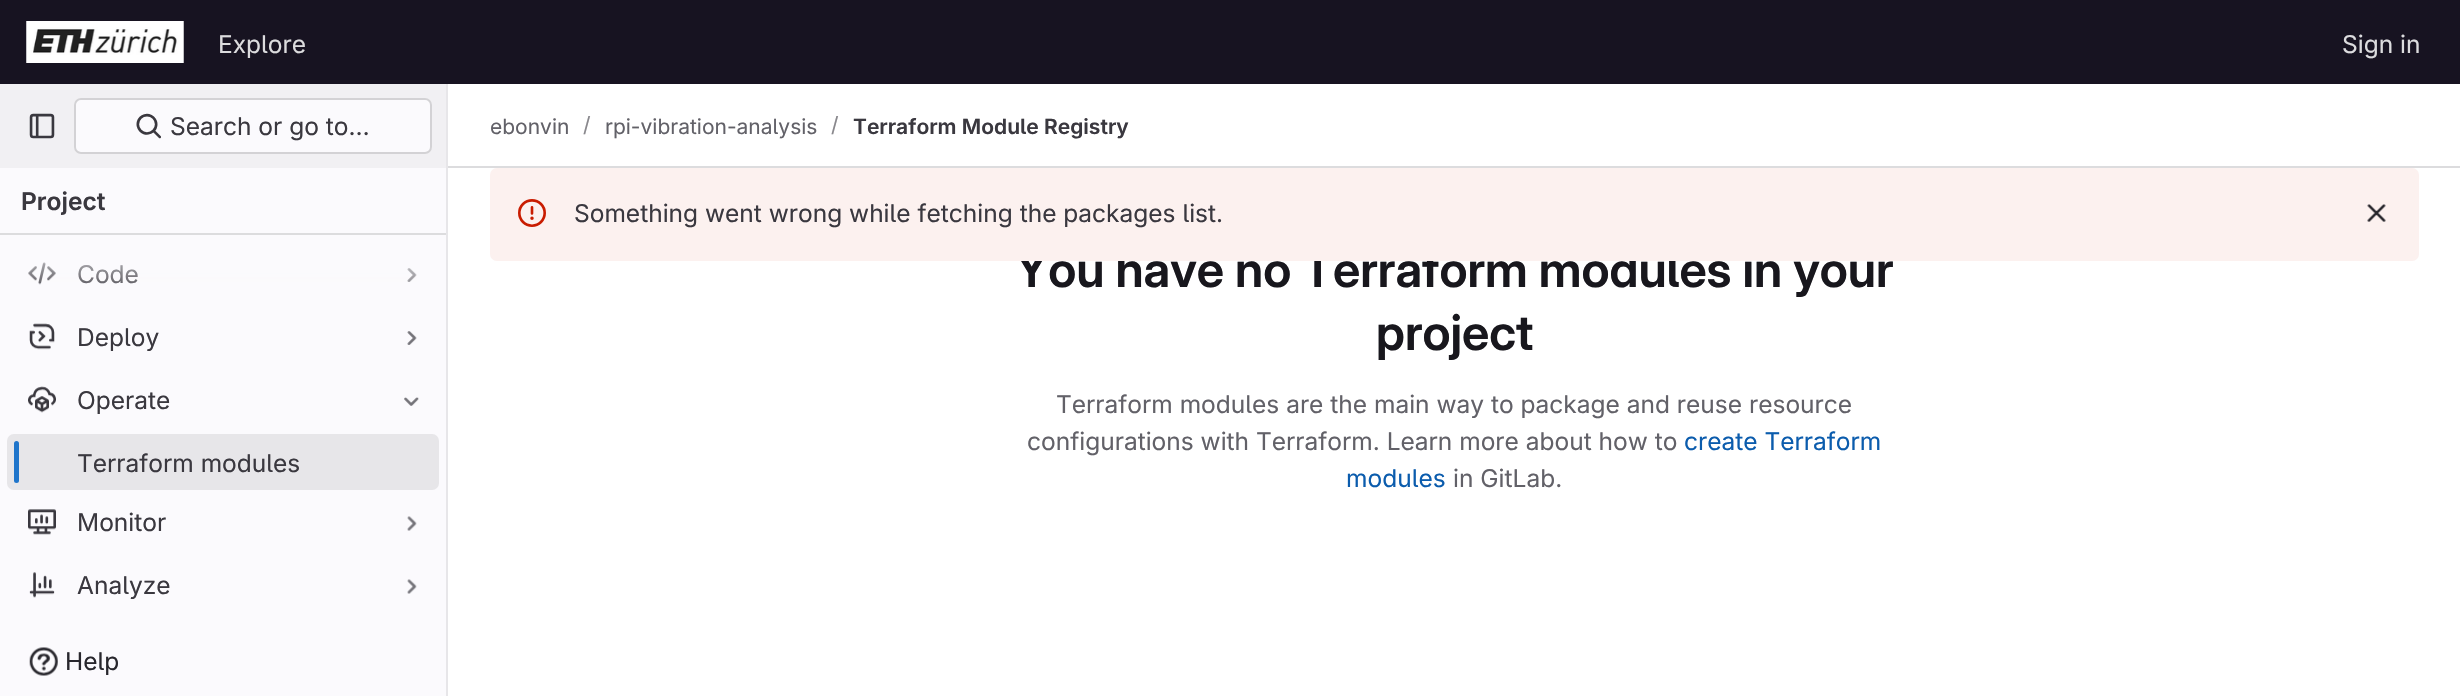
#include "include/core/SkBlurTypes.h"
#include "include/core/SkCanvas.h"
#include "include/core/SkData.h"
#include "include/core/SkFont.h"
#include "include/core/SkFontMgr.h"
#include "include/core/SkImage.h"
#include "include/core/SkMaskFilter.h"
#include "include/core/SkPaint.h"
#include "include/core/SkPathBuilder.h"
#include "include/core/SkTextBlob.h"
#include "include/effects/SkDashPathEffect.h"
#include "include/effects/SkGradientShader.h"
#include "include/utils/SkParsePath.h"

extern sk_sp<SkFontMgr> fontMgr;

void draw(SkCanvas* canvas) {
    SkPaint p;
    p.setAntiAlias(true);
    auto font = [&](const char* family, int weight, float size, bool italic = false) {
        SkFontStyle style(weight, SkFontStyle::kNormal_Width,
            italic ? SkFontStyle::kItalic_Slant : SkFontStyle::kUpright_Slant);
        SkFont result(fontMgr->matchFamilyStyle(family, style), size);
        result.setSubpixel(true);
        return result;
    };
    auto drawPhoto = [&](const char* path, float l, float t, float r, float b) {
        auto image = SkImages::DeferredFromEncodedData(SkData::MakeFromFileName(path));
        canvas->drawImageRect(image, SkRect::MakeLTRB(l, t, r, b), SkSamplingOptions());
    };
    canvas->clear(0xFFFFFFFF);
    p.setColor(0xFF171321);
    canvas->drawRect(SkRect::MakeLTRB(0, 0, 2460, 84), p);
    drawPhoto("media/1.png", 26, 21, 184, 63);
    auto font1 = font("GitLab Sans", 400, 24.5f);
    p.setColor(0xFFDCDCDE);
    canvas->drawString("Explore", 218, 53, font1, p);
    canvas->drawString("Sign in", 2342, 53, font1, p);
    {
        const struct { float l, t, r, b; SkColor color; } items[] = {
            {0, 168, 446, 696, 0xFFFBFAFD},
            {446, 84, 448, 696, 0xFFE7E6E9},
            {0, 84, 446, 168, 0xFFF1F0F3},
        };
        for (auto [l, t, r, b, color] : items) {
            p.setColor(color);
            canvas->drawRect(SkRect::MakeLTRB(l, t, r, b), p);
        }
    }
    drawPhoto("media/2.png", 29, 113, 55, 139);
    p.setColor(0xFFFBFAFD);
    canvas->drawRoundRect(SkRect::MakeLTRB(74, 98, 432, 154), 7, 7, p);
    p.setStyle(SkPaint::kStroke_Style);
    p.setStrokeWidth(2);
    p.setColor(0x29050506);
    canvas->drawRoundRect(SkRect::MakeLTRB(75, 99, 431, 153), 6, 6, p);
    drawPhoto("media/3.png", 136, 113, 161, 139);
    p.setStyle(SkPaint::kFill_Style);
    p.setColor(0xFF3A383F);
    canvas->drawString("Search or go to…", 170, 135, font1, p);
    auto font2 = font("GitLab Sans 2", 600, 24.5f);
    canvas->drawString("Project", 21, 210, font2, p);
    p.setColor(0xFFDCDCDE);
    canvas->drawRect(SkRect::MakeLTRB(0, 233, 446, 235), p);
    drawPhoto("media/4.png", 28, 262, 56, 285);
    p.setColor(0xFF3A383F);
    canvas->drawString("Code", 77, 283, font1, p);
    drawPhoto("media/5.png", 407, 268, 417, 282);
    {
        const SkColor colors[] = {0xFFFBFAFD, 0x00FBFAFD};
        const float stops[] = {0, 1};
        const SkPoint ends[] = {{223, 235}, {223, 298}};
        p.setShader(SkGradientShader::MakeLinear(ends, colors, stops, 2, SkTileMode::kClamp));
        p.setAlpha(255);
    }
    canvas->drawRect(SkRect::MakeLTRB(28, 262, 417, 285), p);
    drawPhoto("media/6.png", 29, 323, 55, 350);
    p.setShader(nullptr);
    p.setColor(0xFF3A383F);
    canvas->drawString("Deploy", 77, 346, font1, p);
    drawPhoto("media/5.png", 407, 331, 417, 345);
    drawPhoto("media/7.png", 28, 386, 56, 413);
    canvas->drawString("Operate", 77, 409, font1, p);
    drawPhoto("media/8.png", 404, 397, 419, 406);
    p.setColor(0xFFE7E6E9);
    canvas->drawRoundRect(SkRect::MakeLTRB(7, 434, 439, 490), 7, 7, p);
    p.setColor(0xFF1F75CB);
    canvas->drawRoundRect(SkRect::MakeLTRB(14, 441, 19, 483), 2.5f, 2.5f, p);
    p.setColor(0xFF3A383F);
    canvas->drawString("Terraform modules", 77, 472, font1, p);
    drawPhoto("media/9.png", 28, 509, 56, 535);
    canvas->drawString("Monitor", 77, 531, font1, p);
    drawPhoto("media/10.png", 407, 516, 417, 531);
    drawPhoto("media/11.png", 29, 572, 55, 598);
    canvas->drawString("Analyze", 77, 594, font1, p);
    drawPhoto("media/10.png", 407, 579, 417, 594);
    drawPhoto("media/12.png", 29, 647, 58, 676);
    p.setColor(0xFF28272D);
    canvas->drawString("Help", 65, 670, font1, p);
    p.setColor(0xFFDCDCDE);
    canvas->drawRect(SkRect::MakeLTRB(448, 166, 2460, 168), p);
    auto font3 = font("GitLab Sans", 400, 21);
    p.setColor(0xFF626168);
    canvas->drawString("ebonvin", 490, 134, font3, p);
    p.setColor(0xFF89888D);
    canvas->drawString("/", 583, 132, font3, p);
    p.setColor(0xFF626168);
    canvas->drawString("rpi-vibration-analysis", 605, 134, font3, p);
    p.setColor(0xFF89888D);
    canvas->drawString("/", 831, 132, font3, p);
    auto font4 = font("GitLab Sans 2", 600, 21);
    p.setColor(0xFF3A383F);
    canvas->drawString("Terraform Module Registry", 853, 134, font4, p);
    auto font5 = font("GitLab Sans", 600, 49);
    p.setColor(0xFF18171D);
    canvas->drawString("You have no Terraform modules in your", 1015, 287, font5, p);
    p.setColor(0xFFFCF1EF);
    canvas->drawRoundRect(SkRect::MakeLTRB(490, 168, 2419, 261), 7, 7, p);
    drawPhoto("media/13.png", 518, 199, 546, 227);
    p.setColor(0xFF3A383F);
    canvas->drawString("Something went wrong while fetching the packages list.", 574, 222, font1, p);
    drawPhoto("media/14.png", 2367, 204, 2386, 222);
    p.setColor(0xFF18171D);
    canvas->drawString("project", 1376, 350, font5, p);
    p.setColor(0xFF626168);
    canvas->drawString("Terraform modules are the main way to package and reuse resource", 1056, 413, font1, p);
    canvas->drawString("configurations with Terraform. Learn more about how to", 1027, 450, font1, p);
    p.setColor(0xFF0B5CAD);
    canvas->drawString("create Terraform", 1684, 450, font1, p);
    canvas->drawString("modules", 1346, 487, font1, p);
    p.setColor(0xFF626168);
    canvas->drawString("in GitLab.", 1453, 487, font1, p);
}
